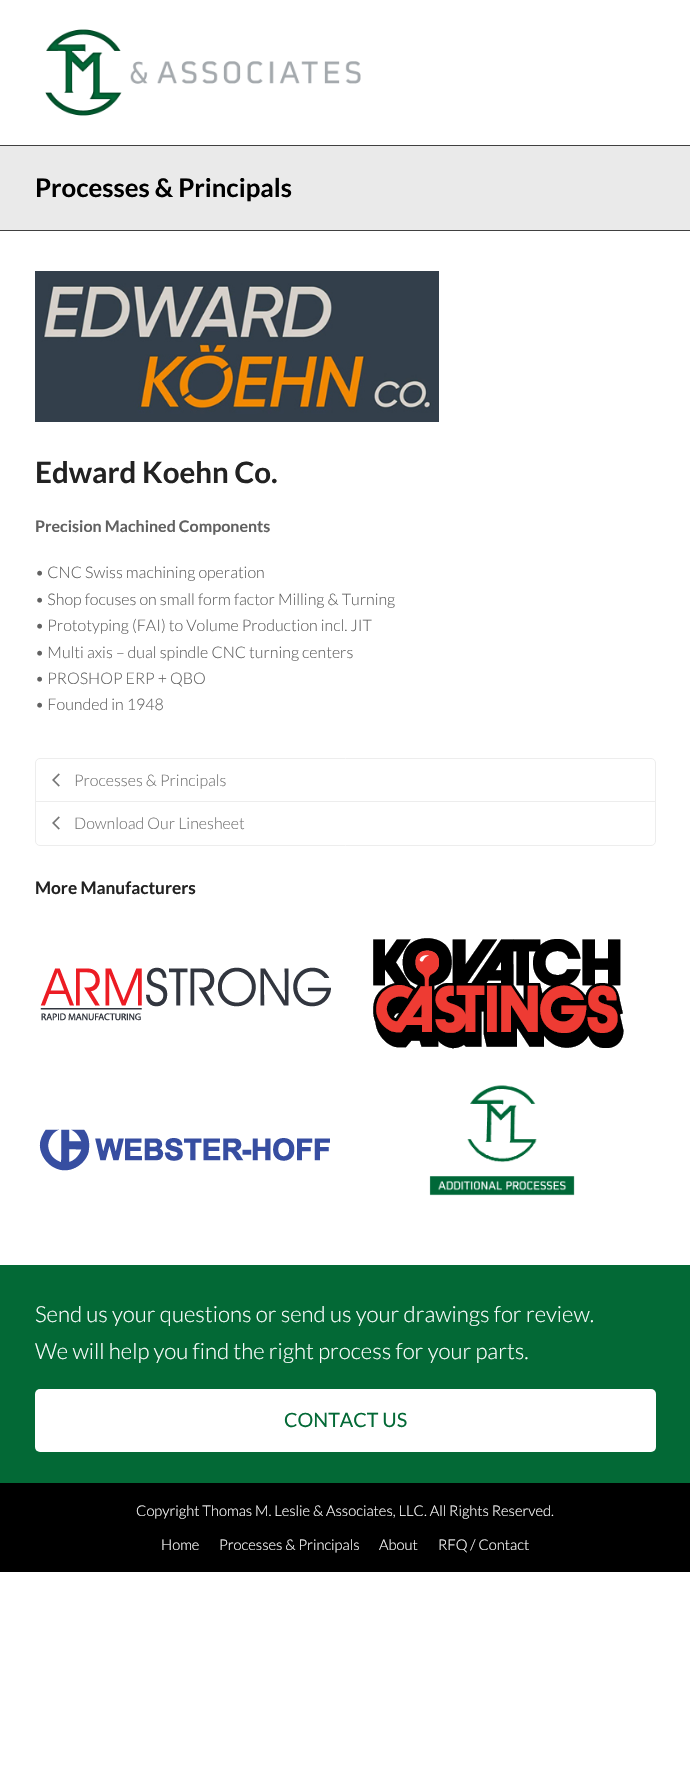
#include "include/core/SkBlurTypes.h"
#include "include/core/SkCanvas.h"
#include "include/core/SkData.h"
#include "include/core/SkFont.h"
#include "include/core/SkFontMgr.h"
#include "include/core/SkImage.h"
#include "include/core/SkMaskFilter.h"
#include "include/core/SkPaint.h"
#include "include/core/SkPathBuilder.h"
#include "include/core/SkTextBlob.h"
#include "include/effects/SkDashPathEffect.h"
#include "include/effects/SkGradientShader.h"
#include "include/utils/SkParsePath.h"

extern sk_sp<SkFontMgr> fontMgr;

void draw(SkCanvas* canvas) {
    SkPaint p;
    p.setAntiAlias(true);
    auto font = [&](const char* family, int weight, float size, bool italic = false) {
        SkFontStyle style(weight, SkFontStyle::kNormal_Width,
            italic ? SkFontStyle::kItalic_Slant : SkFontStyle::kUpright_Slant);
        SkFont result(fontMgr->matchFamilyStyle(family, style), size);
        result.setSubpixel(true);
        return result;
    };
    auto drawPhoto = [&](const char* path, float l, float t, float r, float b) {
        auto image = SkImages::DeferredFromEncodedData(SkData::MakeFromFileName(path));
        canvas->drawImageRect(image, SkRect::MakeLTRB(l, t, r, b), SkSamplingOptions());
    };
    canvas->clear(0xFFFFFFFF);
    drawPhoto("media/1.png", 45, 29, 361, 116);
    {
        const struct { float l, t, r, b; SkColor color; } items[] = {
            {0, 146, 690, 230, 0xFFEAEAEA},
            {0, 145, 690, 146, 0xFF404040},
            {0, 230, 690, 231, 0xFF404040},
        };
        for (auto [l, t, r, b, color] : items) {
            p.setColor(color);
            canvas->drawRect(SkRect::MakeLTRB(l, t, r, b), p);
        }
    }
    auto font1 = font("Lato", 700, 25.75f);
    p.setColor(0xFF000000);
    canvas->drawString("Processes & Principals", 35, 197, font1, p);
    drawPhoto("media/2.png", 35, 271, 439, 422);
    auto font2 = font("Lato", 700, 29.5f);
    p.setColor(0xFF222222);
    canvas->drawString("Edward Koehn Co.", 35, 483, font2, p);
    auto font3 = font("Lato", 700, 16);
    p.setColor(0xFF616161);
    canvas->drawString("Precision Machined Components", 35, 532, font3, p);
    auto font4 = font("Lato", 300, 16);
    {
        const struct { const char* s; float x, y; } items[] = {
            {"• CNC Swiss machining operation", 35, 578},
            {"• Shop focuses on small form factor Milling & Turning", 35, 605},
            {"• Prototyping (FAI) to Volume Production incl. JIT", 35, 631},
            {"• Multi axis – dual spindle CNC turning centers", 35, 658},
            {"• PROSHOP ERP + QBO", 35, 684},
            {"• Founded in 1948", 35, 710},
        };
        for (auto [s, x, y] : items) {
            canvas->drawString(s, x, y, font4, p);
        }
    }
    p.setStyle(SkPaint::kStroke_Style);
    p.setStrokeWidth(1);
    p.setColor(0xFFEDEDED);
    canvas->drawRoundRect(SkRect::MakeLTRB(35.5f, 758.5f, 655.5f, 845.5f), 4.5f, 4.5f, p);
    p.setStyle(SkPaint::kFill_Style);
    canvas->drawRect(SkRect::MakeLTRB(36, 801, 655, 802), p);
    drawPhoto("media/3.png", 52, 773, 60, 787);
    p.setColor(0xFF757575);
    canvas->drawString("Processes & Principals", 74, 786, font4, p);
    drawPhoto("media/3.png", 52, 816, 60, 830);
    canvas->drawString("Download Our Linesheet", 74, 829, font4, p);
    auto font5 = font("Lato", 700, 17.25f);
    p.setColor(0xFF222222);
    canvas->drawString("More Manufacturers", 35, 894, font5, p);
    drawPhoto("media/4.png", 40, 967, 331, 1021);
    drawPhoto("media/5.png", 373, 938, 624, 1049);
    drawPhoto("media/6.png", 39, 1129, 330, 1171);
    drawPhoto("media/7.png", 429, 1085, 575, 1196);
    p.setColor(0xFF036936);
    canvas->drawRect(SkRect::MakeLTRB(0, 1265, 690, 1483), p);
    auto font6 = font("Lato", 300, 22.15f);
    p.setColor(0xFFFFFFFF);
    canvas->drawString("Send us your questions or send us your drawings for review.", 35, 1322, font6, p);
    canvas->drawString("We will help you find the right process for your parts.", 35, 1359, font6, p);
    canvas->drawRoundRect(SkRect::MakeLTRB(35, 1389, 656, 1452), 5, 5, p);
    auto font7 = font("Lato", 400, 19.75f);
    p.setColor(0xFF036936);
    canvas->drawString("CONTACT US", 284, 1427, font7, p);
    p.setColor(0xFF000000);
    canvas->drawRect(SkRect::MakeLTRB(0, 1483, 690, 1572), p);
    auto font8 = font("Lato", 300, 14.75f);
    p.setColor(0xFFFFFFFF);
    {
        const struct { const char* s; float x, y; } items[] = {
            {"Copyright Thomas M. Leslie & Associates, LLC. All Rights Reserved.", 136, 1516},
            {"Home", 161, 1550},
            {"Processes & Principals", 219, 1550},
            {"About", 379, 1550},
            {"RFQ / Contact", 438, 1550},
        };
        for (auto [s, x, y] : items) {
            canvas->drawString(s, x, y, font8, p);
        }
    }
}
